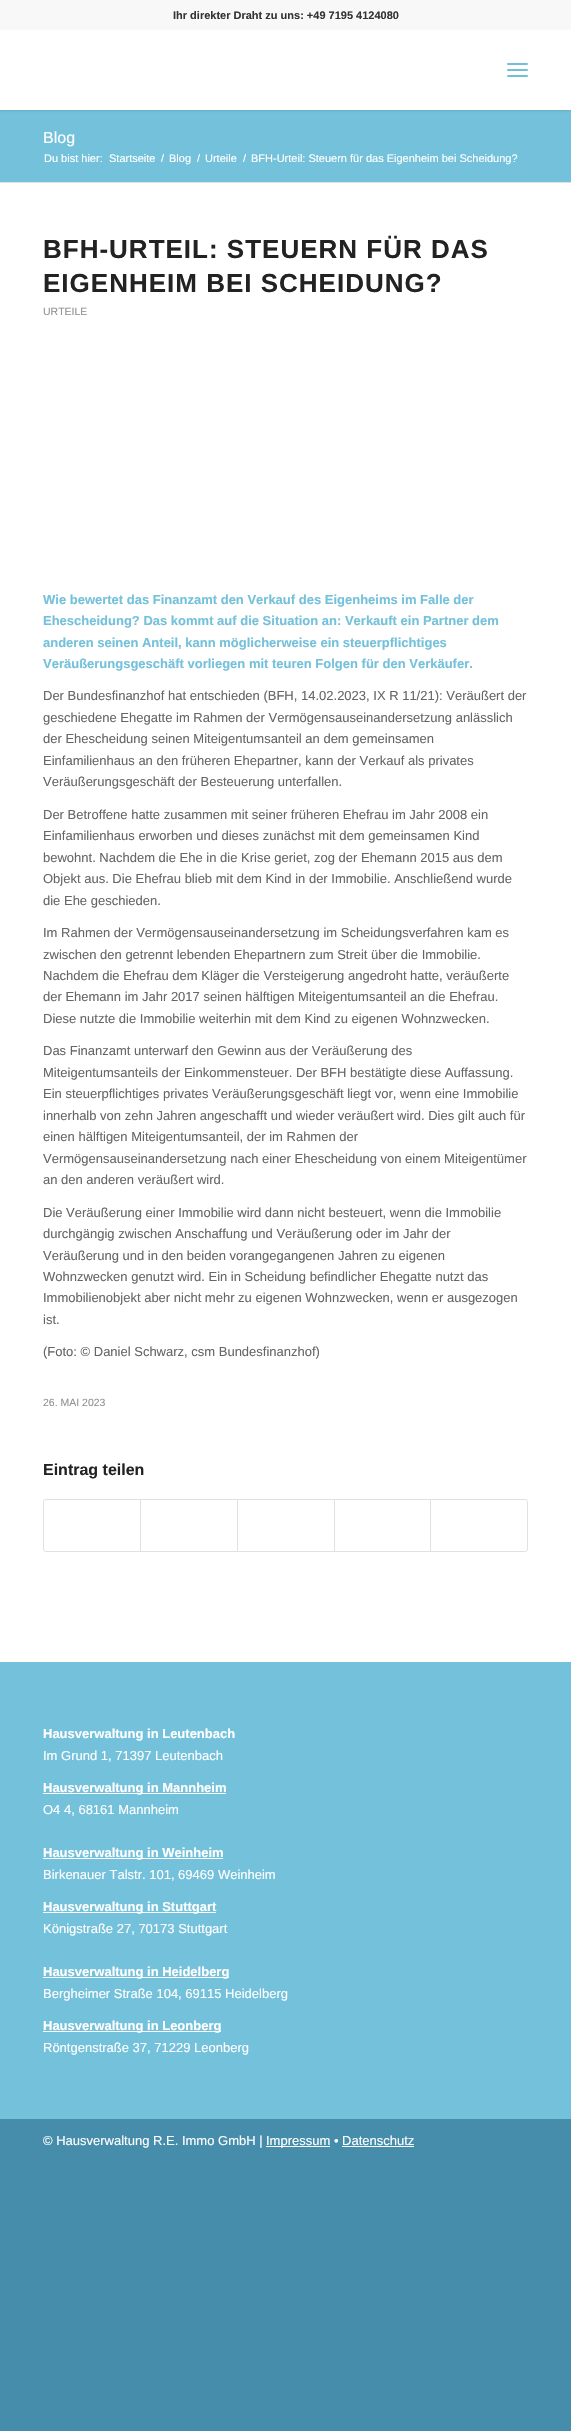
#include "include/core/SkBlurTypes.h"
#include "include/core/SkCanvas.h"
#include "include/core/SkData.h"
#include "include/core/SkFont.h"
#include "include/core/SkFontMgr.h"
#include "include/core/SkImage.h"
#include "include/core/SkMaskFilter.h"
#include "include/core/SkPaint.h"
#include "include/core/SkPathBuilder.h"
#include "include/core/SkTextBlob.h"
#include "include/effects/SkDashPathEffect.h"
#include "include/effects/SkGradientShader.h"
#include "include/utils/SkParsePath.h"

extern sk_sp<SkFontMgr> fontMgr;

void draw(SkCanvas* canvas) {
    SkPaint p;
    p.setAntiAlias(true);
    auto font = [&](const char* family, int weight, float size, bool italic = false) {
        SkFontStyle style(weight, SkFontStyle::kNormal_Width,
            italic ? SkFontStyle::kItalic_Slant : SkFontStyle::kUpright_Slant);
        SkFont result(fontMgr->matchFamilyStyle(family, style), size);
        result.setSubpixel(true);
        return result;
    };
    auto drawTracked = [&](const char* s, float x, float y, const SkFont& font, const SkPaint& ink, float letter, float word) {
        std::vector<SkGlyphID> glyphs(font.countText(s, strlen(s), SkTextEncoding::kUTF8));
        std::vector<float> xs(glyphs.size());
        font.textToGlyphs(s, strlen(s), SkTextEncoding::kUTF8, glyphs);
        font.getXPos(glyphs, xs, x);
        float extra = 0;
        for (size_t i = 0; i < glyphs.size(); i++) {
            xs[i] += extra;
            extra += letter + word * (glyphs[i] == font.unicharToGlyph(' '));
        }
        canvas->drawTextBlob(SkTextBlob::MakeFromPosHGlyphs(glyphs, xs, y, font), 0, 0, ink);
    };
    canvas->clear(0xFF458DAA);
    p.setColor(0xFF74C1DB);
    canvas->drawRect(SkRect::MakeLTRB(0, 110, 571, 182), p);
    p.setColor(0x1A000000);
    p.setMaskFilter(SkMaskFilter::MakeBlur(kNormal_SkBlurStyle, 1));
    canvas->drawRect(SkRect::MakeLTRB(-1, -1, 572, 111), p);
    p.setMaskFilter(nullptr);
    p.setColor(0xFFF8F8F8);
    canvas->drawRect(SkRect::MakeLTRB(0, 0, 571, 30), p);
    auto font1 = font("Liberation Sans", 700, 11);
    p.setColor(0xFF333333);
    canvas->drawString("Ihr direkter Draht zu uns: +49 7195 4124080", 173, 19, font1, p);
    p.setColor(0xFFFFFFFF);
    canvas->drawRect(SkRect::MakeLTRB(0, 30, 571, 110), p);
    p.setColor(0xFF70BFDC);
    canvas->drawRoundRect(SkRect::MakeLTRB(507, 69, 528, 71), 1, 1, p);
    canvas->drawRoundRect(SkRect::MakeLTRB(507, 63, 528, 65), 1, 1, p);
    canvas->drawRoundRect(SkRect::MakeLTRB(507, 75, 528, 77), 1, 1, p);
    p.setColor(0xFFFFFFFF);
    canvas->drawRect(SkRect::MakeLTRB(0, 183, 571, 1662), p);
    auto font2 = font("Liberation Sans", 400, 16);
    canvas->drawString("Blog", 43, 143, font2, p);
    auto font3 = font("Liberation Sans", 400, 11);
    {
        const struct { const char* s; float x, y; } items[] = {
            {"Du bist hier:", 44, 162},
            {"Startseite", 109, 162},
            {"/", 161, 162},
            {"Blog", 169, 162},
            {"/", 197, 162},
            {"Urteile", 205, 162},
            {"/", 243, 162},
            {"BFH-Urteil: Steuern für das Eigenheim bei Scheidung?", 251, 162},
        };
        for (auto [s, x, y] : items) {
            canvas->drawString(s, x, y, font3, p);
        }
    }
    p.setColor(0xFFE1E1E1);
    canvas->drawRect(SkRect::MakeLTRB(0, 182, 571, 183), p);
    auto font4 = font("Liberation Sans", 700, 26);
    p.setColor(0xFF222222);
    drawTracked("BFH-URTEIL: STEUERN FÜR DAS", 43, 258, font4, p, 1, 0);
    drawTracked("EIGENHEIM BEI SCHEIDUNG?", 43, 292, font4, p, 1, 0);
    auto font5 = font("Liberation Sans", 400, 10.5f);
    p.setColor(0xFF919191);
    canvas->drawString("URTEILE", 43, 315, font5, p);
    auto font6 = font("Liberation Sans", 700, 13);
    p.setColor(0xFF74C1DB);
    {
        const struct { const char* s; float x, y; } items[] = {
            {"Wie bewertet das Finanzamt den Verkauf des Eigenheims im Falle der", 43, 604},
            {"Ehescheidung? Das kommt auf die Situation an: Verkauft ein Partner dem", 43, 625},
            {"anderen seinen Anteil, kann möglicherweise ein steuerpflichtiges", 43, 647},
            {"Veräußerungsgeschäft vorliegen mit teuren Folgen für den Verkäufer.", 43, 668},
        };
        for (auto [s, x, y] : items) {
            canvas->drawString(s, x, y, font6, p);
        }
    }
    auto font7 = font("Liberation Sans", 400, 13);
    p.setColor(0xFF666666);
    {
        const struct { const char* s; float x, y; } items[] = {
            {"Der Bundesfinanzhof hat entschieden (BFH, 14.02.2023, IX R 11/21): Veräußert der", 43, 700},
            {"geschiedene Ehegatte im Rahmen der Vermögensauseinandersetzung anlässlich", 43, 722},
            {"der Ehescheidung seinen Miteigentumsanteil an dem gemeinsamen", 43, 743},
            {"Einfamilienhaus an den früheren Ehepartner, kann der Verkauf als privates", 43, 765},
            {"Veräußerungsgeschäft der Besteuerung unterfallen.", 43, 786},
            {"Der Betroffene hatte zusammen mit seiner früheren Ehefrau im Jahr 2008 ein", 43, 819},
            {"Einfamilienhaus erworben und dieses zunächst mit dem gemeinsamen Kind", 43, 840},
            {"bewohnt. Nachdem die Ehe in die Krise geriet, zog der Ehemann 2015 aus dem", 43, 862},
            {"Objekt aus. Die Ehefrau blieb mit dem Kind in der Immobilie. Anschließend wurde", 43, 883},
            {"die Ehe geschieden.", 43, 905},
            {"Im Rahmen der Vermögensauseinandersetzung im Scheidungsverfahren kam es", 43, 937},
            {"zwischen den getrennt lebenden Ehepartnern zum Streit über die Immobilie.", 43, 959},
            {"Nachdem die Ehefrau dem Kläger die Versteigerung angedroht hatte, veräußerte", 43, 980},
            {"der Ehemann im Jahr 2017 seinen hälftigen Miteigentumsanteil an die Ehefrau.", 43, 1001},
            {"Diese nutzte die Immobilie weiterhin mit dem Kind zu eigenen Wohnzwecken.", 43, 1023},
            {"Das Finanzamt unterwarf den Gewinn aus der Veräußerung des", 43, 1055},
            {"Miteigentumsanteils der Einkommensteuer. Der BFH bestätigte diese Auffassung.", 43, 1077},
            {"Ein steuerpflichtiges privates Veräußerungsgeschäft liegt vor, wenn eine Immobilie", 43, 1098},
            {"innerhalb von zehn Jahren angeschafft und wieder veräußert wird. Dies gilt auch für", 43, 1120},
            {"einen hälftigen Miteigentumsanteil, der im Rahmen der", 43, 1141},
            {"Vermögensauseinandersetzung nach einer Ehescheidung von einem Miteigentümer", 43, 1163},
            {"an den anderen veräußert wird.", 43, 1184},
            {"Die Veräußerung einer Immobilie wird dann nicht besteuert, wenn die Immobilie", 43, 1217},
            {"durchgängig zwischen Anschaffung und Veräußerung oder im Jahr der", 43, 1238},
            {"Veräußerung und in den beiden vorangegangenen Jahren zu eigenen", 43, 1260},
            {"Wohnzwecken genutzt wird. Ein in Scheidung befindlicher Ehegatte nutzt das", 43, 1281},
            {"Immobilienobjekt aber nicht mehr zu eigenen Wohnzwecken, wenn er ausgezogen", 43, 1302},
            {"ist.", 43, 1324},
            {"(Foto: © Daniel Schwarz, csm Bundesfinanzhof)", 43, 1356},
        };
        for (auto [s, x, y] : items) {
            canvas->drawString(s, x, y, font7, p);
        }
    }
    p.setColor(0xFF919191);
    canvas->drawString("26. MAI 2023", 43, 1406, font5, p);
    auto font8 = font("Liberation Sans", 700, 16);
    p.setColor(0xFF222222);
    canvas->drawString("Eintrag teilen", 43, 1475, font8, p);
    p.setStyle(SkPaint::kStroke_Style);
    p.setStrokeWidth(1);
    p.setColor(0xFFE1E1E1);
    canvas->drawRoundRect(SkRect::MakeLTRB(43.5f, 1499.5f, 527.5f, 1551.5f), 2.5f, 2.5f, p);
    p.setStyle(SkPaint::kFill_Style);
    {
        const struct { float l, t, r, b; SkColor color; } items[] = {
            {140, 1500, 141, 1551, 0xFFE1E1E1},
            {237, 1500, 238, 1551, 0xFFE1E1E1},
            {334, 1500, 335, 1551, 0xFFE1E1E1},
            {430, 1500, 431, 1551, 0xFFE1E1E1},
            {0, 1662, 571, 2119, 0xFF74C1DB},
        };
        for (auto [l, t, r, b, color] : items) {
            p.setColor(color);
            canvas->drawRect(SkRect::MakeLTRB(l, t, r, b), p);
        }
    }
    p.setColor(0xFFFFFFFF);
    canvas->drawString("Hausverwaltung in Leutenbach", 43, 1738, font6, p);
    canvas->drawString("Im Grund 1, 71397 Leutenbach", 43, 1760, font7, p);
    canvas->drawRect(SkRect::MakeLTRB(43, 1793, 226, 1794), p);
    canvas->drawString("Hausverwaltung in Mannheim", 43, 1792, font6, p);
    canvas->drawString("O4 4, 68161 Mannheim", 43, 1814, font7, p);
    canvas->drawRect(SkRect::MakeLTRB(43, 1858, 223, 1859), p);
    canvas->drawString("Hausverwaltung in Weinheim", 43, 1857, font6, p);
    canvas->drawString("Birkenauer Talstr. 101, 69469 Weinheim", 43, 1879, font7, p);
    canvas->drawRect(SkRect::MakeLTRB(43, 1912, 216, 1913), p);
    canvas->drawString("Hausverwaltung in Stuttgart", 43, 1911, font6, p);
    canvas->drawString("Königstraße 27, 70173 Stuttgart", 43, 1933, font7, p);
    canvas->drawRect(SkRect::MakeLTRB(43, 1977, 229, 1978), p);
    canvas->drawString("Hausverwaltung in Heidelberg", 43, 1976, font6, p);
    canvas->drawString("Bergheimer Straße 104, 69115 Heidelberg", 43, 1998, font7, p);
    canvas->drawRect(SkRect::MakeLTRB(43, 2031, 221, 2032), p);
    canvas->drawString("Hausverwaltung in Leonberg", 43, 2030, font6, p);
    canvas->drawString("Röntgenstraße 37, 71229 Leonberg", 43, 2052, font7, p);
    canvas->drawString("© Hausverwaltung R.E. Immo GmbH |", 43, 2145, font7, p);
    canvas->drawRect(SkRect::MakeLTRB(266, 2146, 330, 2147), p);
    canvas->drawString("Impressum • Datenschutz", 266, 2145, font7, p);
    canvas->drawRect(SkRect::MakeLTRB(342, 2146, 414, 2147), p);
}
